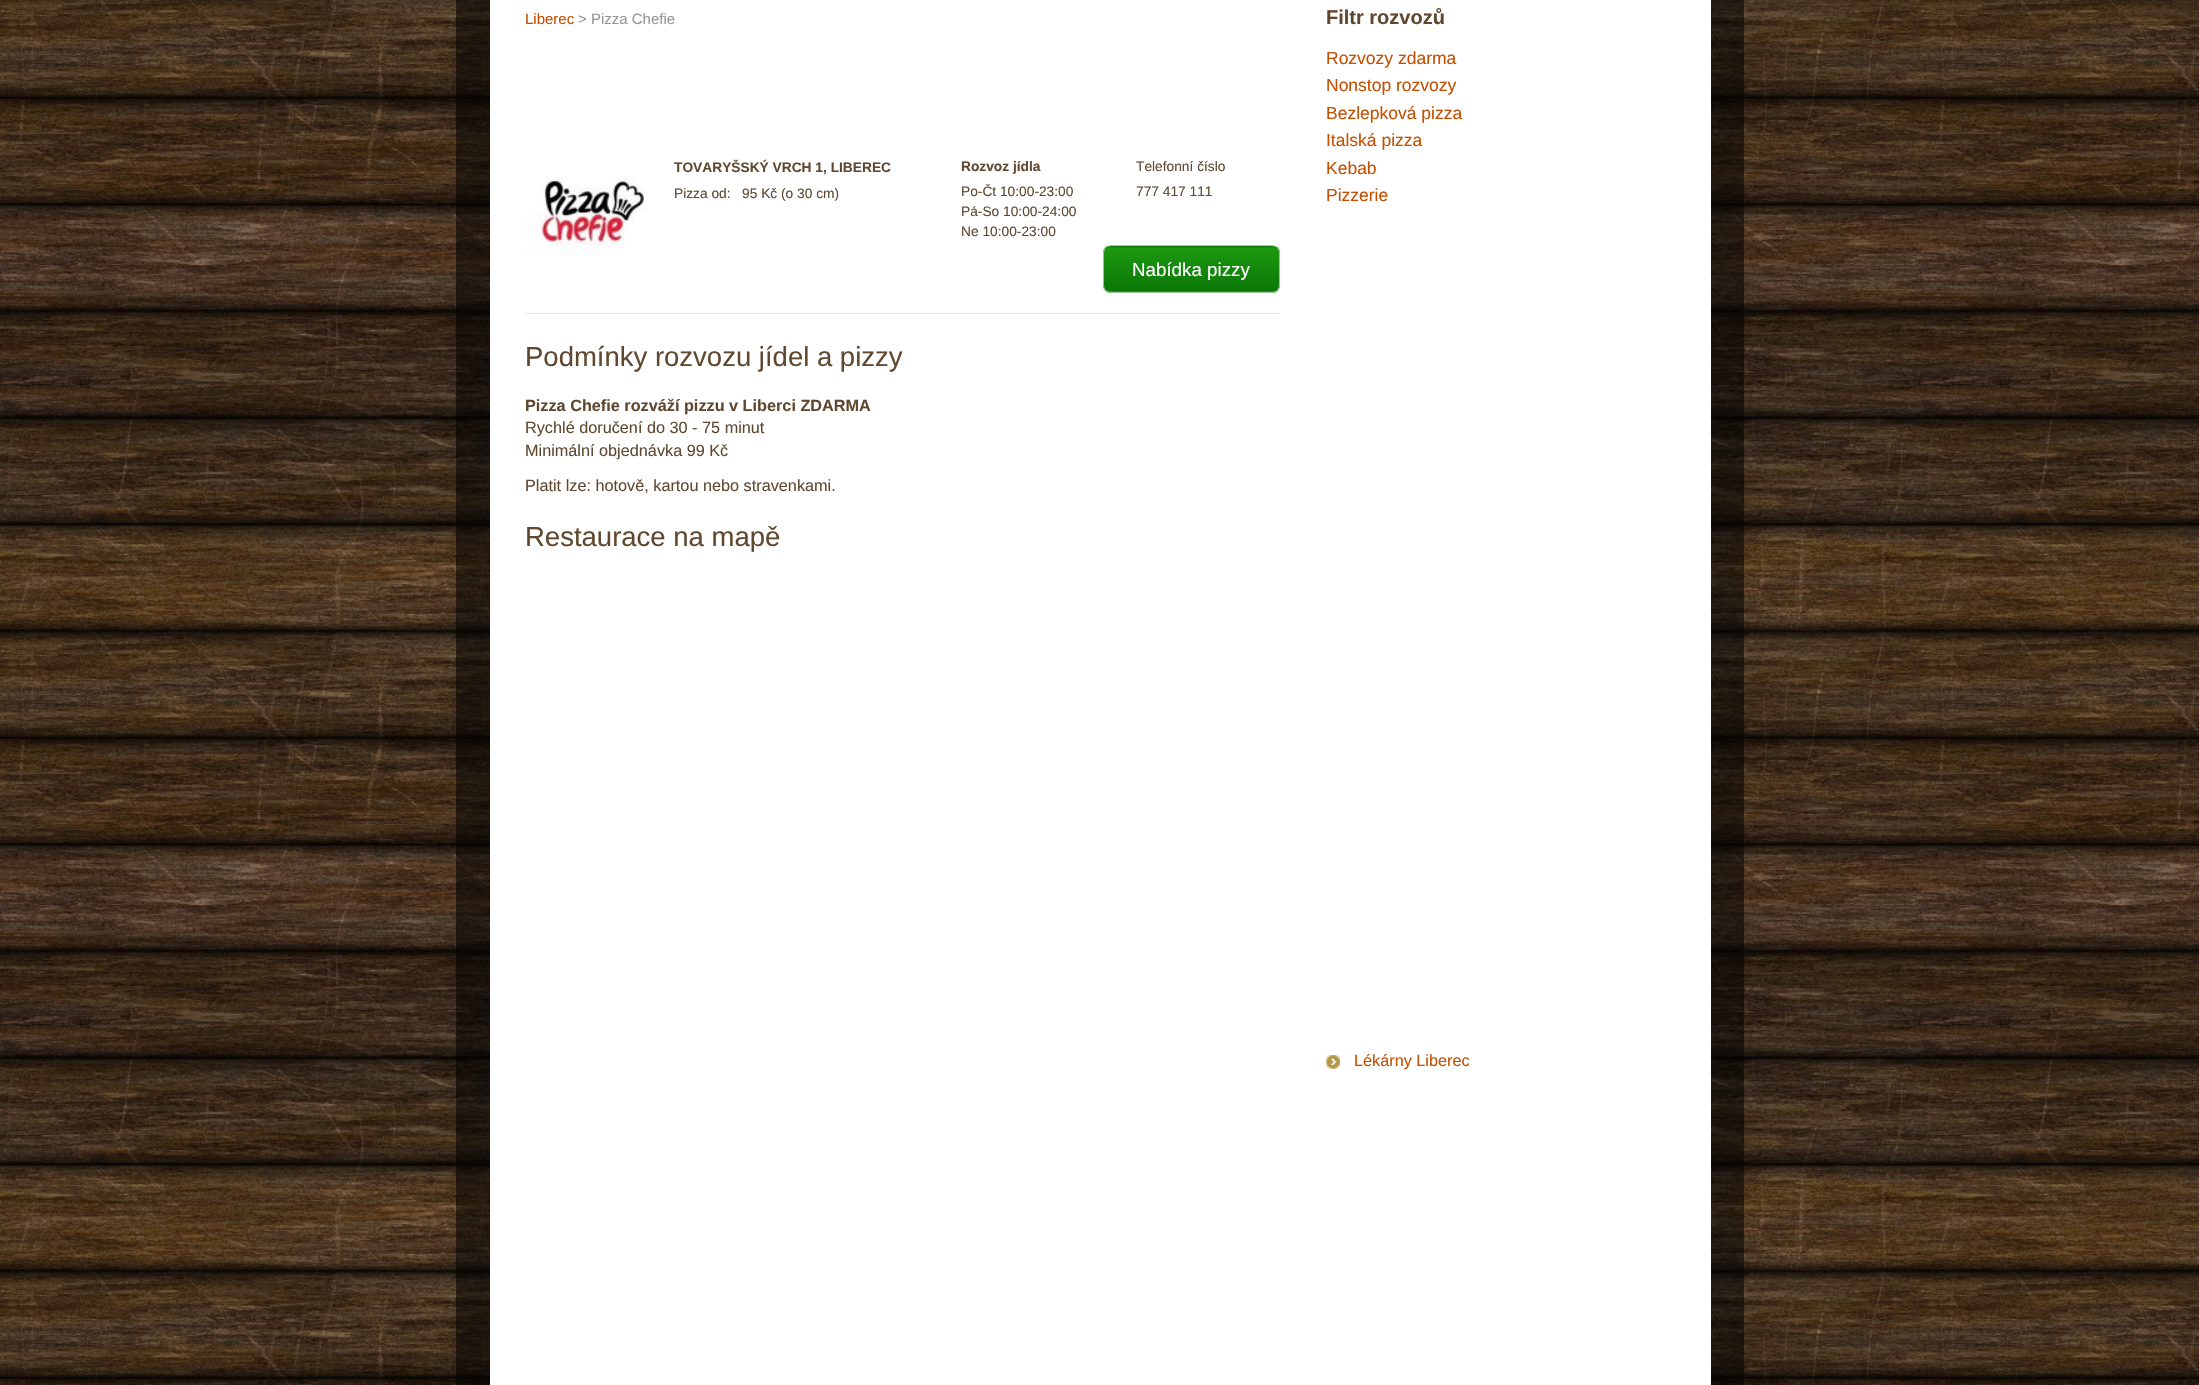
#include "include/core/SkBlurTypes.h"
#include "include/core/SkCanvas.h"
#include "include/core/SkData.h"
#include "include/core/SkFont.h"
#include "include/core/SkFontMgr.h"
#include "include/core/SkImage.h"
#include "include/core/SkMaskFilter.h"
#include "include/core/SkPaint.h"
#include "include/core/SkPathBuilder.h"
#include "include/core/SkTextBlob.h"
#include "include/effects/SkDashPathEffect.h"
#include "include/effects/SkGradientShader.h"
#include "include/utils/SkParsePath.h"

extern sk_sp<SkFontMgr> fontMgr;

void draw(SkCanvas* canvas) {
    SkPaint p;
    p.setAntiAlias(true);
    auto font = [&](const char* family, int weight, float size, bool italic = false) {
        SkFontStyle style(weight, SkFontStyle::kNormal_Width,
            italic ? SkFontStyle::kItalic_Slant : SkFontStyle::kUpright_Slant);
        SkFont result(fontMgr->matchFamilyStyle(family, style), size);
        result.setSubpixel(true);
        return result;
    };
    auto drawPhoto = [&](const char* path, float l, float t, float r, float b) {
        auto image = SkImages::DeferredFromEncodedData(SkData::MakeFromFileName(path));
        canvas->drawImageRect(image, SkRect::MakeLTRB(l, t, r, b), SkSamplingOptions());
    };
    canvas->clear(0xFFFFFFFF);
    drawPhoto("media/1.png", 0, 0, 2199, 1385);
    p.setColor(0x8A000000);
    canvas->drawRect(SkRect::MakeLTRB(456, 0, 1744, 1385), p);
    p.setColor(0xFFFFFFFF);
    canvas->drawRect(SkRect::MakeLTRB(490, 0, 1711, 1385), p);
    auto font1 = font("Liberation Sans", 400, 15);
    p.setColor(0xFFC54F00);
    canvas->drawString("Liberec", 525, 24, font1, p);
    p.setColor(0xFF969696);
    canvas->drawString("> Pizza Chefie", 578, 24, font1, p);
    p.setColor(0xFFE9E9E9);
    canvas->drawRect(SkRect::MakeLTRB(525, 313, 1280, 314), p);
    drawPhoto("media/2.png", 525, 176, 645, 256);
    auto font2 = font("Liberation Sans", 700, 13.75f);
    p.setColor(0xFF604830);
    canvas->drawString("TOVARYŠSKÝ VRCH 1, LIBEREC", 674, 172, font2, p);
    auto font3 = font("Liberation Sans", 400, 13.75f);
    canvas->drawString("Pizza od:   95 Kč (o 30 cm)", 674, 198, font3, p);
    canvas->drawString("Rozvoz jídla", 961, 171, font2, p);
    {
        const struct { const char* s; float x, y; } items[] = {
            {"Po-Čt 10:00-23:00", 961, 196},
            {"Pá-So 10:00-24:00", 961, 216},
            {"Ne 10:00-23:00", 961, 236},
            {"Telefonní číslo", 1136, 171},
            {"777 417 111", 1136, 196},
        };
        for (auto [s, x, y] : items) {
            canvas->drawString(s, x, y, font3, p);
        }
    }
    canvas->save();
    canvas->clipPath(SkPathBuilder().moveTo(1111, 245).lineTo(1272, 245).cubicTo(1276.5f, 245, 1280, 248.5f, 1280, 253).lineTo(1280, 285).cubicTo(1280, 289.5f, 1276.5f, 293, 1272, 293).lineTo(1111, 293).cubicTo(1106.5f, 293, 1103, 289.5f, 1103, 285).lineTo(1103, 253).cubicTo(1103, 248.5f, 1106.5f, 245, 1111, 245).close().detach(), true);
    {
        const SkColor colors[] = {0xFF1C9910, 0xFF0B7707};
        const float stops[] = {0.05f, 1};
        const SkPoint ends[] = {{1104, 246}, {1104, 291}};
        p.setShader(SkGradientShader::MakeLinear(ends, colors, stops, 2, SkTileMode::kClamp));
        p.setAlpha(255);
    }
    canvas->drawRect(SkRect::MakeLTRB(1103, 246, 1280, 291), p);
    {
        const SkColor colors[] = {0xFF1C9910, 0xFF0B7707};
        const float stops[] = {0.05f, 1};
        const SkPoint ends[] = {{1104, 291}, {1104, 336}};
        p.setShader(SkGradientShader::MakeLinear(ends, colors, stops, 2, SkTileMode::kClamp));
        p.setAlpha(255);
    }
    canvas->drawRect(SkRect::MakeLTRB(1103, 291, 1280, 293), p);
    canvas->restore();
    p.setShader(nullptr);
    p.setColor(0xFF12870C);
    canvas->drawPath(SkPathBuilder().moveTo(1110, 248).lineTo(1272, 248).cubicTo(1276, 248, 1279, 250, 1279, 254).lineTo(1279, 252).cubicTo(1279, 249, 1276, 246, 1273, 246).lineTo(1110, 246).cubicTo(1107, 246, 1104, 249, 1104, 252).lineTo(1104, 254).cubicTo(1104, 250, 1107, 248, 1110, 248).close().detach(), p);
    p.setStyle(SkPaint::kStroke_Style);
    p.setStrokeWidth(1);
    p.setColor(0xFF9DC59B);
    canvas->drawRoundRect(SkRect::MakeLTRB(1103.5f, 245.5f, 1279.5f, 292.5f), 7.5f, 7.5f, p);
    auto font4 = font("Liberation Sans", 400, 18.75f);
    p.setStyle(SkPaint::kFill_Style);
    p.setColor(0xFFFFFFFF);
    canvas->drawString("Nabídka pizzy", 1132, 276, font4, p);
    auto font5 = font("Liberation Sans", 400, 27.5f);
    p.setColor(0xFF604830);
    canvas->drawString("Podmínky rozvozu jídel a pizzy", 525, 366, font5, p);
    auto font6 = font("Liberation Sans", 700, 16.25f);
    canvas->drawString("Pizza Chefie rozváží pizzu v Liberci ZDARMA", 525, 411, font6, p);
    auto font7 = font("Liberation Sans", 400, 16.25f);
    {
        const struct { const char* s; float x, y; } items[] = {
            {"Rychlé doručení do 30 - 75 minut", 525, 433},
            {"Minimální objednávka 99 Kč", 525, 456},
            {"Platit lze: hotově, kartou nebo stravenkami.", 525, 491},
        };
        for (auto [s, x, y] : items) {
            canvas->drawString(s, x, y, font7, p);
        }
    }
    canvas->drawString("Restaurace na mapě", 525, 546, font5, p);
    auto font8 = font("Liberation Sans", 700, 20);
    canvas->drawString("Filtr rozvozů", 1326, 24, font8, p);
    auto font9 = font("Liberation Sans", 400, 17.5f);
    p.setColor(0xFFC54F00);
    {
        const struct { const char* s; float x, y; } items[] = {
            {"Rozvozy zdarma", 1326, 64},
            {"Nonstop rozvozy", 1326, 91},
            {"Bezlepková pizza", 1326, 119},
            {"Italská pizza", 1326, 146},
            {"Kebab", 1326, 174},
            {"Pizzerie", 1326, 201},
        };
        for (auto [s, x, y] : items) {
            canvas->drawString(s, x, y, font9, p);
        }
    }
    drawPhoto("media/3.png", 1326, 1055, 1340, 1069);
    canvas->drawString("Lékárny Liberec", 1354, 1066, font7, p);
}
